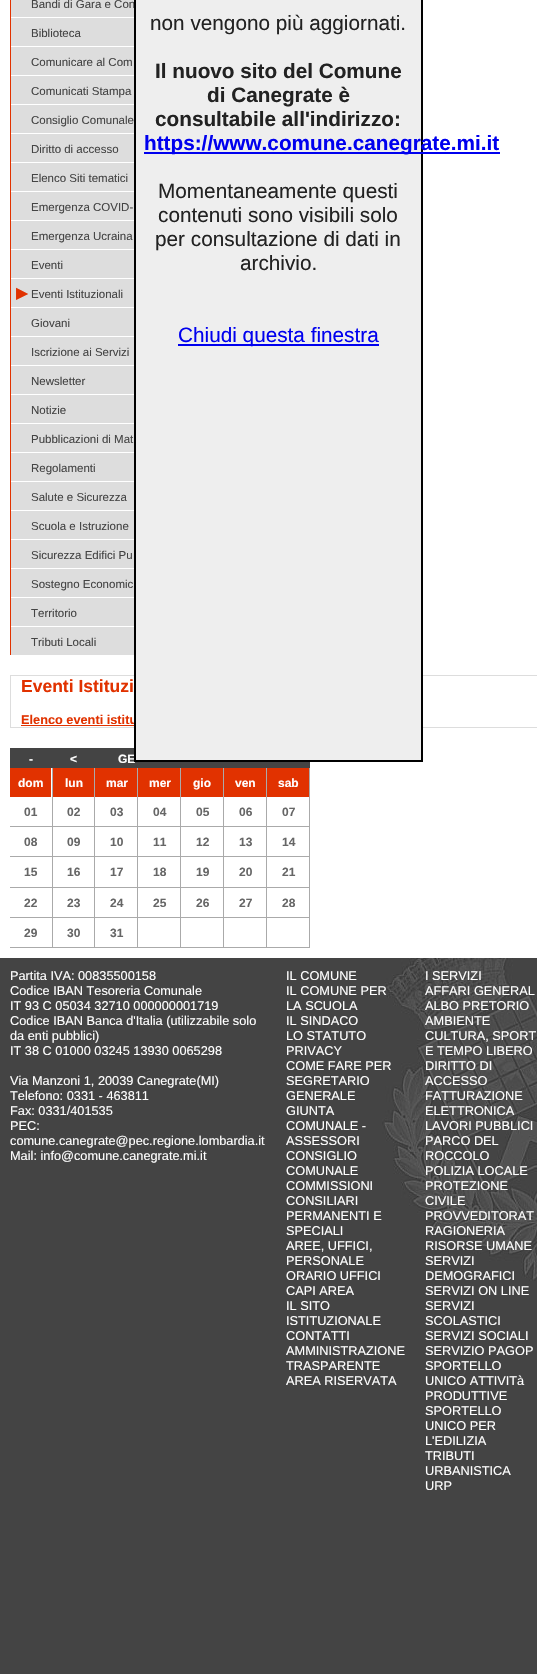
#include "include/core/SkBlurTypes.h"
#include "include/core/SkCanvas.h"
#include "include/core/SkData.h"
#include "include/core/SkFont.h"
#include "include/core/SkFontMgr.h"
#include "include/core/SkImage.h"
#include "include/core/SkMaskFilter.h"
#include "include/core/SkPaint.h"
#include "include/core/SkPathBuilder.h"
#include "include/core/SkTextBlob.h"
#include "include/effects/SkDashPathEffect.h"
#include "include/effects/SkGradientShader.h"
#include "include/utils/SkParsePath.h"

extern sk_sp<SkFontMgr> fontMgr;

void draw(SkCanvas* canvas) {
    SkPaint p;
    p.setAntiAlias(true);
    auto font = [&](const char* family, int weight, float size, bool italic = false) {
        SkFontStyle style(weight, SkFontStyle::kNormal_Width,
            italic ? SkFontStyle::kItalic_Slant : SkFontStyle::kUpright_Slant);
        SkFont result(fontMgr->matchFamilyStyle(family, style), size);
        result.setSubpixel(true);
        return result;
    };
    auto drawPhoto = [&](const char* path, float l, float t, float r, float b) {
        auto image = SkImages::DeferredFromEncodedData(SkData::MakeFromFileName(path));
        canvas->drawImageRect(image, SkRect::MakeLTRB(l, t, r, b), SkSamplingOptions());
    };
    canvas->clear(0xFFFFFFFF);
    p.setColor(0xFFE13200);
    canvas->drawRect(SkRect::MakeLTRB(10, 0, 11, 655), p);
    p.setColor(0xFFDDDDDD);
    canvas->drawRect(SkRect::MakeLTRB(11, 0, 134, 17), p);
    auto font1 = font("Liberation Sans", 400, 11.5f);
    p.setColor(0xFF444444);
    canvas->drawString("Bandi di Gara e Con", 31, 8, font1, p);
    p.setColor(0xFFDDDDDD);
    canvas->drawRect(SkRect::MakeLTRB(11, 18, 134, 46), p);
    p.setColor(0xFF444444);
    canvas->drawString("Biblioteca", 31, 37, font1, p);
    p.setColor(0xFFDDDDDD);
    canvas->drawRect(SkRect::MakeLTRB(11, 47, 134, 75), p);
    p.setColor(0xFF444444);
    canvas->drawString("Comunicare al Com", 31, 66, font1, p);
    p.setColor(0xFFDDDDDD);
    canvas->drawRect(SkRect::MakeLTRB(11, 76, 134, 104), p);
    p.setColor(0xFF444444);
    canvas->drawString("Comunicati Stampa", 31, 95, font1, p);
    p.setColor(0xFFDDDDDD);
    canvas->drawRect(SkRect::MakeLTRB(11, 105, 134, 133), p);
    p.setColor(0xFF444444);
    canvas->drawString("Consiglio Comunale", 31, 124, font1, p);
    p.setColor(0xFFDDDDDD);
    canvas->drawRect(SkRect::MakeLTRB(11, 134, 134, 162), p);
    p.setColor(0xFF444444);
    canvas->drawString("Diritto di accesso", 31, 153, font1, p);
    p.setColor(0xFFDDDDDD);
    canvas->drawRect(SkRect::MakeLTRB(11, 163, 134, 191), p);
    p.setColor(0xFF444444);
    canvas->drawString("Elenco Siti tematici", 31, 182, font1, p);
    p.setColor(0xFFDDDDDD);
    canvas->drawRect(SkRect::MakeLTRB(11, 192, 134, 220), p);
    p.setColor(0xFF444444);
    canvas->drawString("Emergenza COVID-", 31, 211, font1, p);
    p.setColor(0xFFDDDDDD);
    canvas->drawRect(SkRect::MakeLTRB(11, 221, 134, 249), p);
    p.setColor(0xFF444444);
    canvas->drawString("Emergenza Ucraina", 31, 240, font1, p);
    p.setColor(0xFFDDDDDD);
    canvas->drawRect(SkRect::MakeLTRB(11, 250, 134, 278), p);
    p.setColor(0xFF444444);
    canvas->drawString("Eventi", 31, 269, font1, p);
    p.setColor(0xFFDDDDDD);
    canvas->drawRect(SkRect::MakeLTRB(11, 279, 134, 307), p);
    auto font2 = font("DejaVu Sans", 700, 15);
    p.setColor(0xFFE13200);
    canvas->drawString("▶", 16, 298, font2, p);
    p.setColor(0xFF444444);
    canvas->drawString("Eventi Istituzionali", 31, 298, font1, p);
    p.setColor(0xFFDDDDDD);
    canvas->drawRect(SkRect::MakeLTRB(11, 308, 134, 336), p);
    p.setColor(0xFF444444);
    canvas->drawString("Giovani", 31, 327, font1, p);
    p.setColor(0xFFDDDDDD);
    canvas->drawRect(SkRect::MakeLTRB(11, 337, 134, 365), p);
    p.setColor(0xFF444444);
    canvas->drawString("Iscrizione ai Servizi", 31, 356, font1, p);
    p.setColor(0xFFDDDDDD);
    canvas->drawRect(SkRect::MakeLTRB(11, 366, 134, 394), p);
    p.setColor(0xFF444444);
    canvas->drawString("Newsletter", 31, 385, font1, p);
    p.setColor(0xFFDDDDDD);
    canvas->drawRect(SkRect::MakeLTRB(11, 395, 134, 423), p);
    p.setColor(0xFF444444);
    canvas->drawString("Notizie", 31, 414, font1, p);
    p.setColor(0xFFDDDDDD);
    canvas->drawRect(SkRect::MakeLTRB(11, 424, 134, 452), p);
    p.setColor(0xFF444444);
    canvas->drawString("Pubblicazioni di Mat", 31, 443, font1, p);
    p.setColor(0xFFDDDDDD);
    canvas->drawRect(SkRect::MakeLTRB(11, 453, 134, 481), p);
    p.setColor(0xFF444444);
    canvas->drawString("Regolamenti", 31, 472, font1, p);
    p.setColor(0xFFDDDDDD);
    canvas->drawRect(SkRect::MakeLTRB(11, 482, 134, 510), p);
    p.setColor(0xFF444444);
    canvas->drawString("Salute e Sicurezza", 31, 501, font1, p);
    p.setColor(0xFFDDDDDD);
    canvas->drawRect(SkRect::MakeLTRB(11, 511, 134, 539), p);
    p.setColor(0xFF444444);
    canvas->drawString("Scuola e Istruzione", 31, 530, font1, p);
    p.setColor(0xFFDDDDDD);
    canvas->drawRect(SkRect::MakeLTRB(11, 540, 134, 568), p);
    p.setColor(0xFF444444);
    canvas->drawString("Sicurezza Edifici Pu", 31, 559, font1, p);
    p.setColor(0xFFDDDDDD);
    canvas->drawRect(SkRect::MakeLTRB(11, 569, 134, 597), p);
    p.setColor(0xFF444444);
    canvas->drawString("Sostegno Economic", 31, 588, font1, p);
    p.setColor(0xFFDDDDDD);
    canvas->drawRect(SkRect::MakeLTRB(11, 598, 134, 626), p);
    p.setColor(0xFF444444);
    canvas->drawString("Territorio", 31, 617, font1, p);
    p.setColor(0xFFDDDDDD);
    canvas->drawRect(SkRect::MakeLTRB(11, 627, 134, 655), p);
    p.setColor(0xFF444444);
    canvas->drawString("Tributi Locali", 31, 646, font1, p);
    p.setStyle(SkPaint::kStroke_Style);
    p.setStrokeWidth(1);
    p.setColor(0xFFDDDDDD);
    canvas->drawRect(SkRect::MakeLTRB(10.5f, 675.5f, 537.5f, 727.5f), p);
    auto font3 = font("Liberation Sans", 700, 17.5f);
    p.setStyle(SkPaint::kFill_Style);
    p.setColor(0xFFE13200);
    canvas->drawString("Eventi Istituzi", 21, 692, font3, p);
    auto font4 = font("Liberation Sans", 700, 12.75f);
    canvas->drawString("Elenco eventi istitu", 21, 724, font4, p);
    canvas->drawRect(SkRect::MakeLTRB(21, 725, 134, 726), p);
    p.setColor(0xFF444444);
    canvas->drawRect(SkRect::MakeLTRB(10, 748, 224, 768), p);
    auto font5 = font("Liberation Sans", 700, 12);
    p.setColor(0xFFFFFFFF);
    {
        const struct { const char* s; float x, y; } items[] = {
            {"-", 29, 763},
            {"<", 70, 763},
            {"GE", 118, 763},
        };
        for (auto [s, x, y] : items) {
            canvas->drawString(s, x, y, font5, p);
        }
    }
    p.setColor(0xFF444444);
    canvas->drawRect(SkRect::MakeLTRB(224, 762, 310, 768), p);
    p.setColor(0xFFE13200);
    canvas->drawRect(SkRect::MakeLTRB(10, 768, 51, 797), p);
    p.setColor(0xFFFFFFFF);
    canvas->drawString("dom", 18, 787, font5, p);
    p.setColor(0xFFE13200);
    canvas->drawRect(SkRect::MakeLTRB(53, 768, 94, 797), p);
    p.setColor(0xFFFFFFFF);
    canvas->drawString("lun", 65, 787, font5, p);
    p.setColor(0xFFE13200);
    canvas->drawRect(SkRect::MakeLTRB(95, 768, 137, 797), p);
    p.setColor(0xFFFFFFFF);
    canvas->drawString("mar", 106, 787, font5, p);
    p.setColor(0xFFE13200);
    canvas->drawRect(SkRect::MakeLTRB(138, 768, 180, 797), p);
    p.setColor(0xFFFFFFFF);
    canvas->drawString("mer", 149, 787, font5, p);
    p.setColor(0xFFE13200);
    canvas->drawRect(SkRect::MakeLTRB(181, 768, 223, 797), p);
    p.setColor(0xFFFFFFFF);
    canvas->drawString("gio", 193, 787, font5, p);
    p.setColor(0xFFE13200);
    canvas->drawRect(SkRect::MakeLTRB(224, 768, 266, 797), p);
    p.setColor(0xFFFFFFFF);
    canvas->drawString("ven", 235, 787, font5, p);
    p.setColor(0xFFE13200);
    canvas->drawRect(SkRect::MakeLTRB(267, 768, 309, 797), p);
    p.setColor(0xFFFFFFFF);
    canvas->drawString("sab", 278, 787, font5, p);
    {
        const struct { float l, t, r, b; SkColor color; } items[] = {
            {309, 768, 310, 948, 0xFFAAAAAA},
            {266, 947, 310, 948, 0xFFAAAAAA},
            {266, 917, 267, 948, 0xFFAAAAAA},
            {266, 917, 310, 918, 0xFFAAAAAA},
            {266, 887, 267, 918, 0xFFAAAAAA},
            {266, 887, 310, 888, 0xFFAAAAAA},
            {266, 856, 267, 888, 0xFFAAAAAA},
            {266, 856, 310, 857, 0xFFAAAAAA},
            {266, 826, 267, 857, 0xFFAAAAAA},
            {266, 826, 310, 827, 0xFFAAAAAA},
            {266, 768, 267, 827, 0xFFAAAAAA},
            {223, 947, 267, 948, 0xFFAAAAAA},
            {223, 917, 224, 948, 0xFFAAAAAA},
            {223, 917, 267, 918, 0xFFAAAAAA},
            {223, 887, 224, 918, 0xFFAAAAAA},
            {223, 887, 267, 888, 0xFFAAAAAA},
            {223, 856, 224, 888, 0xFFAAAAAA},
            {223, 856, 267, 857, 0xFFAAAAAA},
            {223, 826, 224, 857, 0xFFAAAAAA},
            {223, 826, 267, 827, 0xFFAAAAAA},
            {223, 768, 224, 827, 0xFFAAAAAA},
            {180, 947, 224, 948, 0xFFAAAAAA},
            {180, 917, 181, 948, 0xFFAAAAAA},
            {180, 917, 224, 918, 0xFFAAAAAA},
            {180, 887, 181, 918, 0xFFAAAAAA},
            {180, 887, 224, 888, 0xFFAAAAAA},
            {180, 856, 181, 888, 0xFFAAAAAA},
            {180, 856, 224, 857, 0xFFAAAAAA},
            {180, 826, 181, 857, 0xFFAAAAAA},
            {180, 826, 224, 827, 0xFFAAAAAA},
            {180, 768, 181, 827, 0xFFAAAAAA},
            {137, 947, 181, 948, 0xFFAAAAAA},
            {137, 917, 138, 948, 0xFFAAAAAA},
            {137, 917, 181, 918, 0xFFAAAAAA},
            {137, 887, 138, 918, 0xFFAAAAAA},
            {137, 887, 181, 888, 0xFFAAAAAA},
            {137, 856, 138, 888, 0xFFAAAAAA},
            {137, 856, 181, 857, 0xFFAAAAAA},
            {137, 826, 138, 857, 0xFFAAAAAA},
            {137, 826, 181, 827, 0xFFAAAAAA},
            {137, 768, 138, 827, 0xFFAAAAAA},
            {94, 947, 138, 948, 0xFFAAAAAA},
            {94, 917, 95, 948, 0xFFAAAAAA},
            {94, 917, 138, 918, 0xFFAAAAAA},
            {94, 887, 95, 918, 0xFFAAAAAA},
            {94, 887, 138, 888, 0xFFAAAAAA},
            {94, 856, 95, 888, 0xFFAAAAAA},
            {94, 856, 138, 857, 0xFFAAAAAA},
            {94, 826, 95, 857, 0xFFAAAAAA},
            {94, 826, 138, 827, 0xFFAAAAAA},
            {94, 768, 95, 827, 0xFFAAAAAA},
            {52, 947, 95, 948, 0xFFAAAAAA},
            {52, 917, 53, 948, 0xFFAAAAAA},
            {52, 917, 95, 918, 0xFFAAAAAA},
            {52, 887, 53, 918, 0xFFAAAAAA},
            {52, 887, 95, 888, 0xFFAAAAAA},
            {52, 856, 53, 888, 0xFFAAAAAA},
            {52, 856, 95, 857, 0xFFAAAAAA},
            {52, 826, 53, 857, 0xFFAAAAAA},
            {52, 826, 95, 827, 0xFFAAAAAA},
            {52, 768, 53, 827, 0xFFAAAAAA},
            {10, 826, 53, 827, 0xFFAAAAAA},
        };
        for (auto [l, t, r, b, color] : items) {
            p.setColor(color);
            canvas->drawRect(SkRect::MakeLTRB(l, t, r, b), p);
        }
    }
    p.setColor(0xFF666666);
    {
        const struct { const char* s; float x, y; } items[] = {
            {"01", 24, 816},
            {"02", 67, 816},
            {"03", 110, 816},
            {"04", 153, 816},
            {"05", 196, 816},
            {"06", 239, 816},
            {"07", 282, 816},
        };
        for (auto [s, x, y] : items) {
            canvas->drawString(s, x, y, font5, p);
        }
    }
    p.setColor(0xFFAAAAAA);
    canvas->drawRect(SkRect::MakeLTRB(10, 856, 53, 857), p);
    p.setColor(0xFF666666);
    {
        const struct { const char* s; float x, y; } items[] = {
            {"08", 24, 846},
            {"09", 67, 846},
            {"10", 110, 846},
            {"11", 153, 846},
            {"12", 196, 846},
            {"13", 239, 846},
            {"14", 282, 846},
        };
        for (auto [s, x, y] : items) {
            canvas->drawString(s, x, y, font5, p);
        }
    }
    p.setColor(0xFFAAAAAA);
    canvas->drawRect(SkRect::MakeLTRB(10, 887, 53, 888), p);
    p.setColor(0xFF666666);
    {
        const struct { const char* s; float x, y; } items[] = {
            {"15", 24, 876},
            {"16", 67, 876},
            {"17", 110, 876},
            {"18", 153, 876},
            {"19", 196, 876},
            {"20", 239, 876},
            {"21", 282, 876},
        };
        for (auto [s, x, y] : items) {
            canvas->drawString(s, x, y, font5, p);
        }
    }
    p.setColor(0xFFAAAAAA);
    canvas->drawRect(SkRect::MakeLTRB(10, 917, 53, 918), p);
    p.setColor(0xFF666666);
    {
        const struct { const char* s; float x, y; } items[] = {
            {"22", 24, 907},
            {"23", 67, 907},
            {"24", 110, 907},
            {"25", 153, 907},
            {"26", 196, 907},
            {"27", 239, 907},
            {"28", 282, 907},
        };
        for (auto [s, x, y] : items) {
            canvas->drawString(s, x, y, font5, p);
        }
    }
    p.setColor(0xFFAAAAAA);
    canvas->drawRect(SkRect::MakeLTRB(10, 947, 53, 948), p);
    p.setColor(0xFF666666);
    {
        const struct { const char* s; float x, y; } items[] = {
            {"29", 24, 937},
            {"30", 67, 937},
            {"31", 110, 937},
        };
        for (auto [s, x, y] : items) {
            canvas->drawString(s, x, y, font5, p);
        }
    }
    p.setColor(0xFFEEEEEE);
    canvas->drawRect(SkRect::MakeLTRB(135, -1, 422, 761), p);
    p.setStyle(SkPaint::kStroke_Style);
    p.setStrokeWidth(2);
    p.setColor(0xFF000000);
    canvas->drawRect(SkRect::MakeLTRB(135, -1, 422, 761), p);
    auto font6 = font("Liberation Sans", 400, 20.75f);
    p.setStyle(SkPaint::kFill_Style);
    p.setColor(0xFF222222);
    canvas->drawString("non vengono più aggiornati.", 150, 30, font6, p);
    auto font7 = font("Liberation Sans", 700, 20.75f);
    {
        const struct { const char* s; float x, y; } items[] = {
            {"Il nuovo sito del Comune", 155, 78},
            {"di Canegrate è", 207, 102},
            {"consultabile all'indirizzo:", 155, 126},
        };
        for (auto [s, x, y] : items) {
            canvas->drawString(s, x, y, font7, p);
        }
    }
    p.setColor(0xFF0000EE);
    canvas->drawRect(SkRect::MakeLTRB(144, 152, 500, 154), p);
    canvas->drawString("https://www.comune.canegrate.mi.it", 144, 150, font7, p);
    p.setColor(0xFF222222);
    {
        const struct { const char* s; float x, y; } items[] = {
            {"Momentaneamente questi", 158, 198},
            {"contenuti sono visibili solo", 158, 222},
            {"per consultazione di dati in", 155, 246},
            {"archivio.", 240, 270},
        };
        for (auto [s, x, y] : items) {
            canvas->drawString(s, x, y, font6, p);
        }
    }
    p.setColor(0xFF0000EE);
    canvas->drawRect(SkRect::MakeLTRB(178, 344, 379, 346), p);
    canvas->drawString("Chiudi questa finestra", 178, 342, font6, p);
    p.setColor(0xFF444444);
    canvas->drawRect(SkRect::MakeLTRB(0, 958, 537, 1674), p);
    drawPhoto("media/1.png", 382, 958, 537, 1281);
    auto font8 = font("Liberation Sans", 400, 12.75f);
    p.setColor(0xFFFFFFFF);
    {
        const struct { const char* s; float x, y; } items[] = {
            {"Partita IVA: 00835500158", 10, 980},
            {"Codice IBAN Tesoreria Comunale", 10, 995},
            {"IT 93 C 05034 32710 000000001719", 10, 1010},
            {"Codice IBAN Banca d'Italia (utilizzabile solo", 10, 1025},
            {"da enti pubblici)", 10, 1040},
            {"IT 38 C 01000 03245 13930 0065298", 10, 1055},
            {"Via Manzoni 1, 20039 Canegrate(MI)", 10, 1085},
            {"Telefono: 0331 - 463811", 10, 1100},
            {"Fax: 0331/401535", 10, 1115},
            {"PEC:", 10, 1130},
            {"comune.canegrate@pec.regione.lombardia.it", 10, 1145},
            {"Mail: info@comune.canegrate.mi.it", 10, 1160},
            {"IL COMUNE", 286, 980},
            {"IL COMUNE PER", 286, 995},
            {"LA SCUOLA", 286, 1010},
            {"IL SINDACO", 286, 1025},
            {"LO STATUTO", 286, 1040},
            {"PRIVACY", 286, 1055},
            {"COME FARE PER", 286, 1070},
            {"SEGRETARIO", 286, 1085},
            {"GENERALE", 286, 1100},
            {"GIUNTA", 286, 1115},
            {"COMUNALE -", 286, 1130},
            {"ASSESSORI", 286, 1145},
            {"CONSIGLIO", 286, 1160},
            {"COMUNALE", 286, 1175},
            {"COMMISSIONI", 286, 1190},
            {"CONSILIARI", 286, 1205},
            {"PERMANENTI E", 286, 1220},
            {"SPECIALI", 286, 1235},
            {"AREE, UFFICI,", 286, 1250},
            {"PERSONALE", 286, 1265},
            {"ORARIO UFFICI", 286, 1280},
            {"CAPI AREA", 286, 1295},
            {"IL SITO", 286, 1310},
            {"ISTITUZIONALE", 286, 1325},
            {"CONTATTI", 286, 1340},
            {"AMMINISTRAZIONE", 286, 1355},
            {"TRASPARENTE", 286, 1370},
            {"AREA RISERVATA", 286, 1385},
            {"I SERVIZI", 425, 980},
            {"AFFARI GENERAL", 425, 995},
            {"ALBO PRETORIO", 425, 1010},
            {"AMBIENTE", 425, 1025},
            {"CULTURA, SPORT", 425, 1040},
            {"E TEMPO LIBERO", 425, 1055},
            {"DIRITTO DI", 425, 1070},
            {"ACCESSO", 425, 1085},
            {"FATTURAZIONE", 425, 1100},
            {"ELETTRONICA", 425, 1115},
            {"LAVORI PUBBLICI", 425, 1130},
            {"PARCO DEL", 425, 1145},
            {"ROCCOLO", 425, 1160},
            {"POLIZIA LOCALE", 425, 1175},
            {"PROTEZIONE", 425, 1190},
            {"CIVILE", 425, 1205},
            {"PROVVEDITORAT", 425, 1220},
            {"RAGIONERIA", 425, 1235},
            {"RISORSE UMANE", 425, 1250},
            {"SERVIZI", 425, 1265},
            {"DEMOGRAFICI", 425, 1280},
            {"SERVIZI ON LINE", 425, 1295},
            {"SERVIZI", 425, 1310},
            {"SCOLASTICI", 425, 1325},
            {"SERVIZI SOCIALI", 425, 1340},
            {"SERVIZIO PAGOP", 425, 1355},
            {"SPORTELLO", 425, 1370},
            {"UNICO ATTIVITà", 425, 1385},
            {"PRODUTTIVE", 425, 1400},
            {"SPORTELLO", 425, 1415},
            {"UNICO PER", 425, 1430},
            {"L'EDILIZIA", 425, 1445},
            {"TRIBUTI", 425, 1460},
            {"URBANISTICA", 425, 1475},
            {"URP", 425, 1490},
        };
        for (auto [s, x, y] : items) {
            canvas->drawString(s, x, y, font8, p);
        }
    }
}
